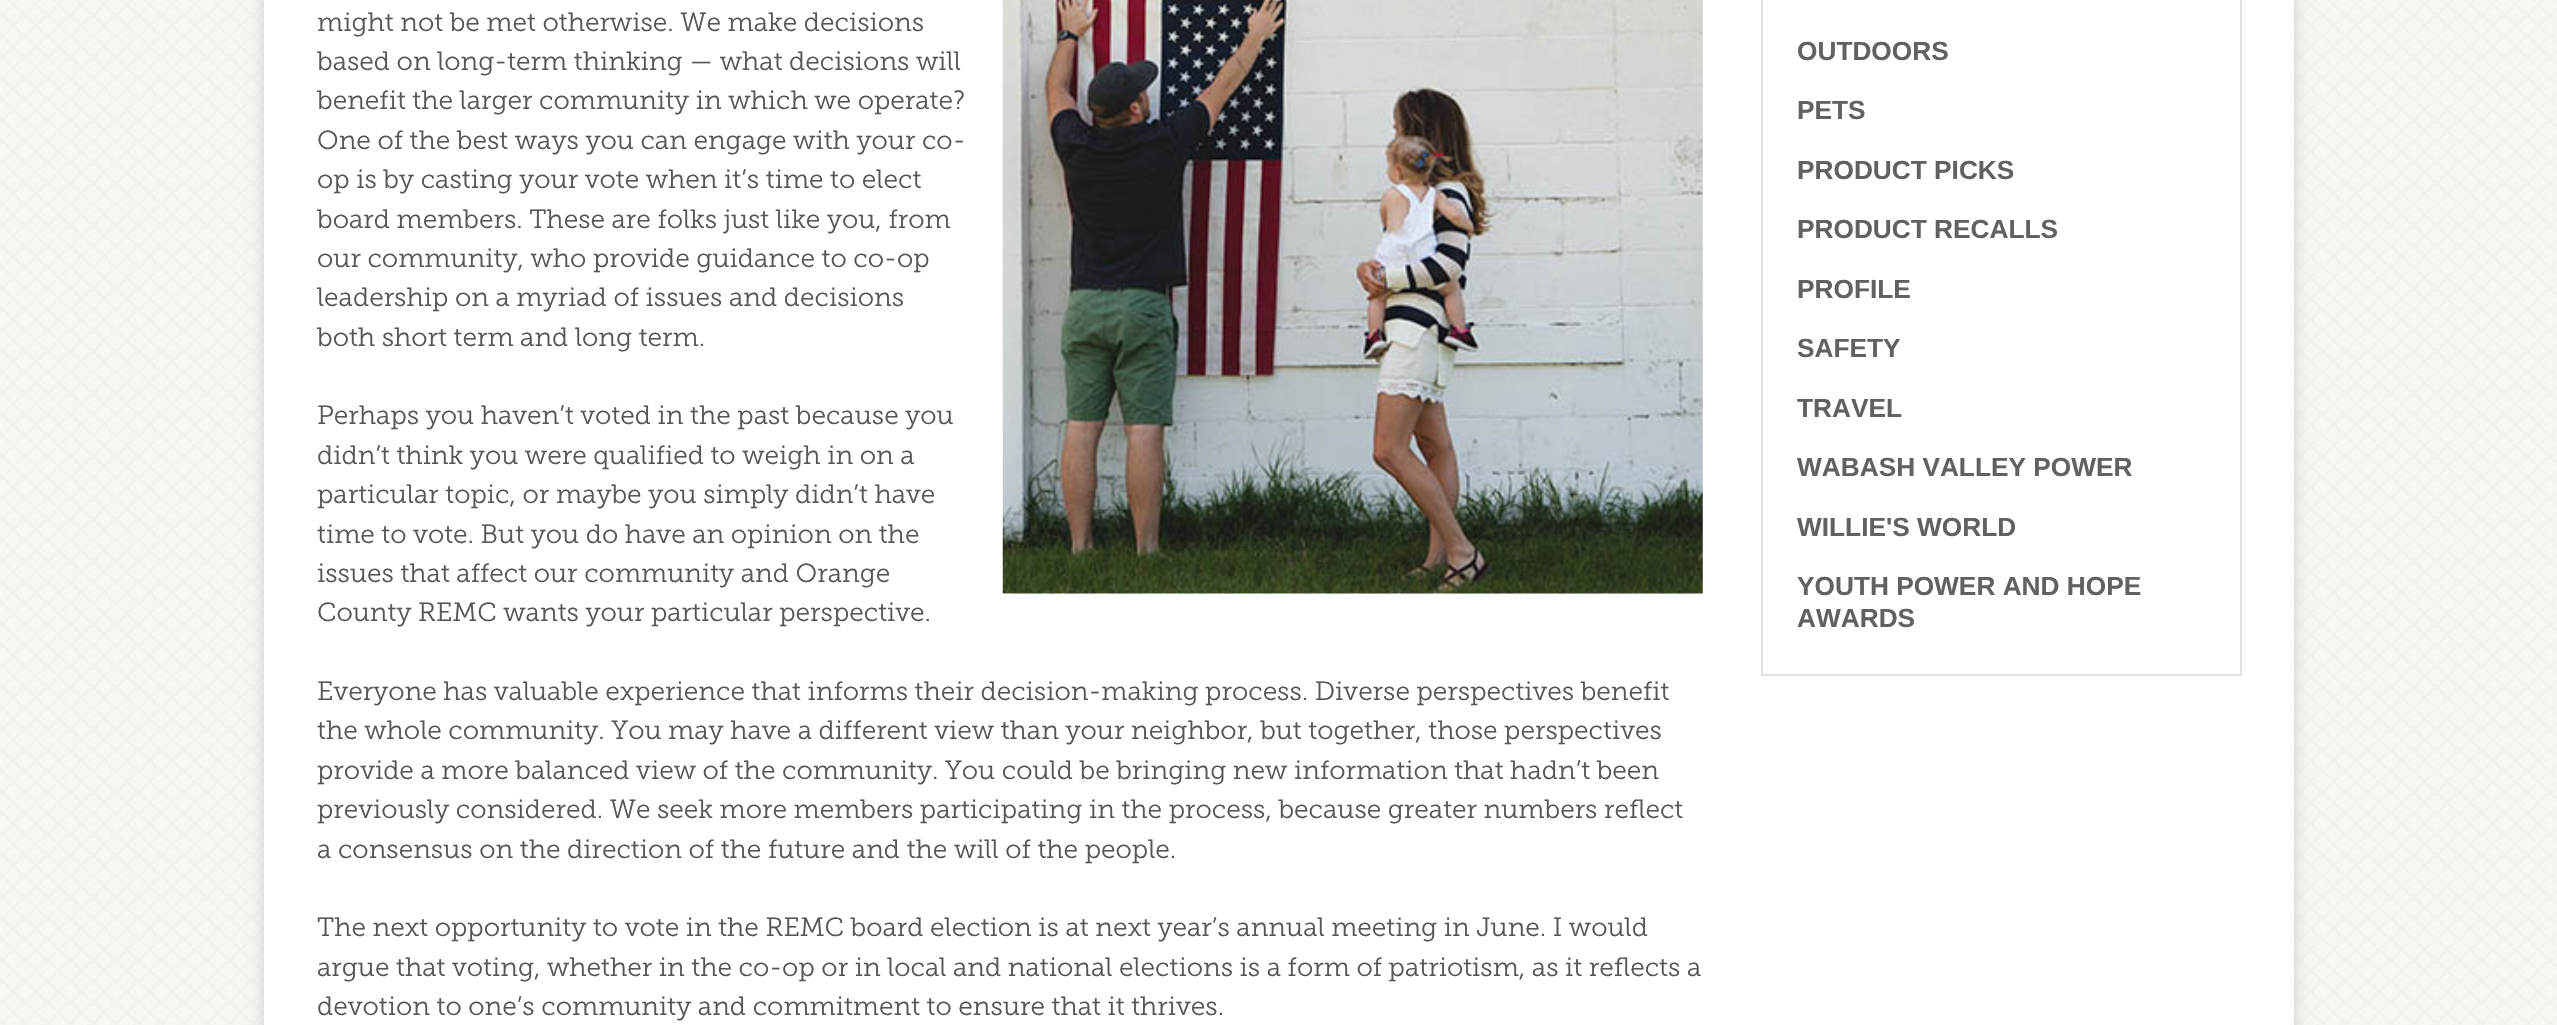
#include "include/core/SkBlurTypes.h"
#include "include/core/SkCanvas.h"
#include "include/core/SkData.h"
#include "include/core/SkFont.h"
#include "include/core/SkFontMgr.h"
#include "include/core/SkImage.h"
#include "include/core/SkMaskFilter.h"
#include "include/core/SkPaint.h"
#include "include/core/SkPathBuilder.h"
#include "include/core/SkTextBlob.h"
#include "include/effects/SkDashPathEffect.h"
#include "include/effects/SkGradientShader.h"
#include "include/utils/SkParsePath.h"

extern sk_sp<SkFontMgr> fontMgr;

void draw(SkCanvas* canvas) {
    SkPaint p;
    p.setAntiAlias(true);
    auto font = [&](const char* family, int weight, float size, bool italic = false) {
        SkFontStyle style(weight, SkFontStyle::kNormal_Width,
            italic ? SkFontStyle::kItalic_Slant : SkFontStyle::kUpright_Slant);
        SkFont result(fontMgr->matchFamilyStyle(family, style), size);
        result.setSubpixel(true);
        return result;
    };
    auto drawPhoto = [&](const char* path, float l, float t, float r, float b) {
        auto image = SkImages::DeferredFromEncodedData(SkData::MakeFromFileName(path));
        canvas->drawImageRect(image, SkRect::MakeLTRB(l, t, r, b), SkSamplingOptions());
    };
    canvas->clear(0xFFFFFFFF);
    drawPhoto("media/1.png", 0, 0, 2557, 1025);
    p.setColor(0xFFCCCCCC);
    p.setMaskFilter(SkMaskFilter::MakeBlur(kNormal_SkBlurStyle, 7));
    canvas->drawRect(SkRect::MakeLTRB(264, -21, 2294, 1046), p);
    p.setMaskFilter(nullptr);
    p.setColor(0xFFFFFFFF);
    canvas->drawRect(SkRect::MakeLTRB(264, 0, 2294, 1025), p);
    auto font1 = font("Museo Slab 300", 300, 26.25f);
    p.setColor(0xFF565656);
    canvas->drawString("might not be met otherwise. We make decisions", 317, 31, font1, p);
    drawPhoto("media/2.png", 1002, 0, 1703, 594);
    {
        const struct { const char* s; float x, y; } items[] = {
            {"based on long-term thinking — what decisions will", 317, 70},
            {"benefit the larger community in which we operate?", 317, 109},
            {"One of the best ways you can engage with your co-", 317, 149},
            {"op is by casting your vote when it’s time to elect", 317, 188},
            {"board members. These are folks just like you, from", 317, 228},
            {"our community, who provide guidance to co-op", 317, 267},
            {"leadership on a myriad of issues and decisions", 317, 306},
            {"both short term and long term.", 317, 346},
            {"Perhaps you haven’t voted in the past because you", 317, 424},
            {"didn’t think you were qualified to weigh in on a", 317, 464},
            {"particular topic, or maybe you simply didn’t have", 317, 503},
            {"time to vote. But you do have an opinion on the", 317, 543},
            {"issues that affect our community and Orange", 317, 582},
            {"County REMC wants your particular perspective.", 317, 621},
            {"Everyone has valuable experience that informs their decision-making process. Diverse perspectives benefit", 317, 700},
            {"the whole community. You may have a different view than your neighbor, but together, those perspectives", 317, 739},
            {"provide a more balanced view of the community. You could be bringing new information that hadn’t been", 317, 779},
            {"previously considered. We seek more members participating in the process, because greater numbers reflect", 317, 818},
            {"a consensus on the direction of the future and the will of the people.", 317, 858},
            {"The next opportunity to vote in the REMC board election is at next year’s annual meeting in June. I would", 317, 936},
            {"argue that voting, whether in the co-op or in local and national elections is a form of patriotism, as it reflects a", 317, 976},
            {"devotion to one’s community and commitment to ensure that it thrives.", 317, 1015},
        };
        for (auto [s, x, y] : items) {
            canvas->drawString(s, x, y, font1, p);
        }
    }
    p.setStyle(SkPaint::kStroke_Style);
    p.setStrokeWidth(2);
    p.setColor(0xFFE1E1E1);
    canvas->drawRect(SkRect::MakeLTRB(1762, -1, 2241, 675), p);
    auto font2 = font("Liberation Sans", 700, 26.25f);
    p.setStyle(SkPaint::kFill_Style);
    p.setColor(0xFF616161);
    {
        const struct { const char* s; float x, y; } items[] = {
            {"OUTDOORS", 1797, 60},
            {"PETS", 1797, 119},
            {"PRODUCT PICKS", 1797, 179},
            {"PRODUCT RECALLS", 1797, 238},
            {"PROFILE", 1797, 298},
            {"SAFETY", 1797, 357},
            {"TRAVEL", 1797, 417},
            {"WABASH VALLEY POWER", 1797, 476},
            {"WILLIE'S WORLD", 1797, 536},
            {"YOUTH POWER AND HOPE", 1797, 595},
            {"AWARDS", 1797, 627},
        };
        for (auto [s, x, y] : items) {
            canvas->drawString(s, x, y, font2, p);
        }
    }
}
